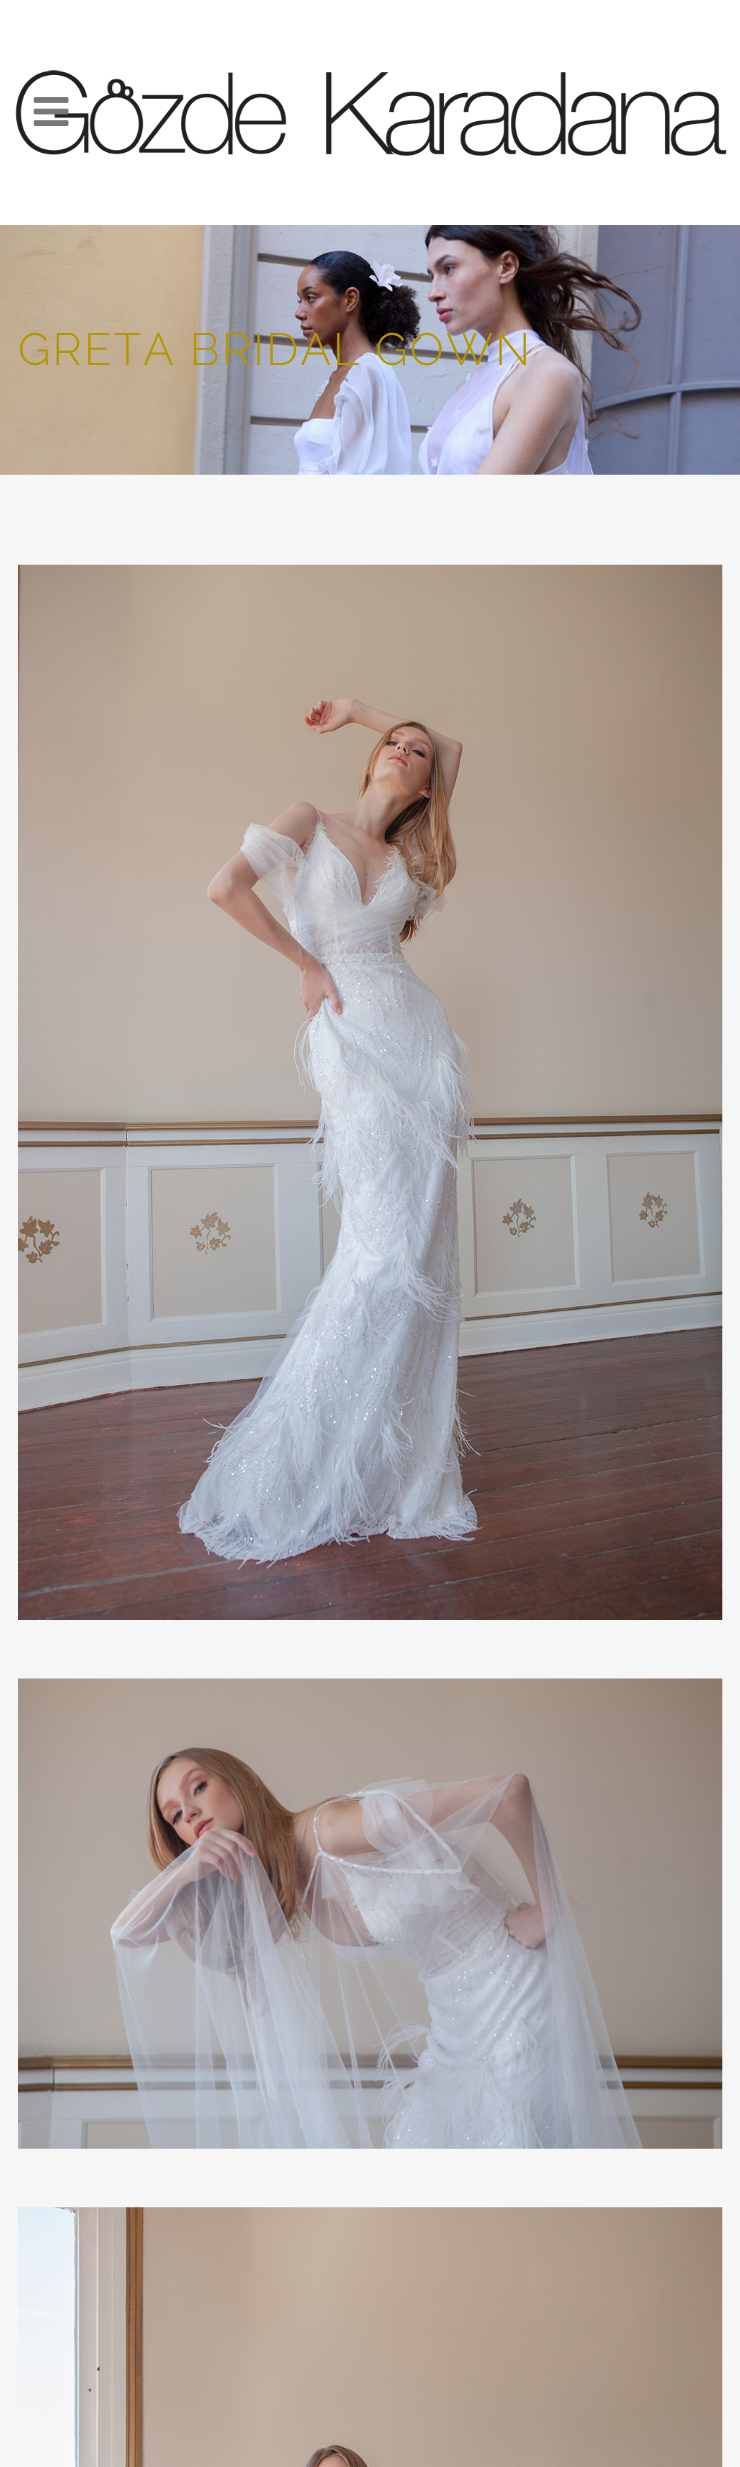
#include "include/core/SkBlurTypes.h"
#include "include/core/SkCanvas.h"
#include "include/core/SkData.h"
#include "include/core/SkFont.h"
#include "include/core/SkFontMgr.h"
#include "include/core/SkImage.h"
#include "include/core/SkMaskFilter.h"
#include "include/core/SkPaint.h"
#include "include/core/SkPathBuilder.h"
#include "include/core/SkTextBlob.h"
#include "include/effects/SkDashPathEffect.h"
#include "include/effects/SkGradientShader.h"
#include "include/utils/SkParsePath.h"

extern sk_sp<SkFontMgr> fontMgr;

void draw(SkCanvas* canvas) {
    SkPaint p;
    p.setAntiAlias(true);
    auto font = [&](const char* family, int weight, float size, bool italic = false) {
        SkFontStyle style(weight, SkFontStyle::kNormal_Width,
            italic ? SkFontStyle::kItalic_Slant : SkFontStyle::kUpright_Slant);
        SkFont result(fontMgr->matchFamilyStyle(family, style), size);
        result.setSubpixel(true);
        return result;
    };
    auto drawTracked = [&](const char* s, float x, float y, const SkFont& font, const SkPaint& ink, float letter, float word) {
        std::vector<SkGlyphID> glyphs(font.countText(s, strlen(s), SkTextEncoding::kUTF8));
        std::vector<float> xs(glyphs.size());
        font.textToGlyphs(s, strlen(s), SkTextEncoding::kUTF8, glyphs);
        font.getXPos(glyphs, xs, x);
        float extra = 0;
        for (size_t i = 0; i < glyphs.size(); i++) {
            xs[i] += extra;
            extra += letter + word * (glyphs[i] == font.unicharToGlyph(' '));
        }
        canvas->drawTextBlob(SkTextBlob::MakeFromPosHGlyphs(glyphs, xs, y, font), 0, 0, ink);
    };
    auto drawPhoto = [&](const char* path, float l, float t, float r, float b) {
        auto image = SkImages::DeferredFromEncodedData(SkData::MakeFromFileName(path));
        canvas->drawImageRect(image, SkRect::MakeLTRB(l, t, r, b), SkSamplingOptions());
    };
    canvas->clear(0xFFF6F6F6);
    p.setColor(0xFFFFFFFF);
    canvas->drawRect(SkRect::MakeLTRB(0, 0, 740, 225), p);
    drawPhoto("media/1.png", 15, 70, 727, 156);
    drawPhoto("media/2.png", 33, 97, 69, 126);
    drawPhoto("media/3.png", 0, 225, 740, 475);
    auto font1 = font("Raleway", 300, 45);
    p.setColor(0xFFB39700);
    drawTracked("GRETA BRIDAL GOWN", 18, 365, font1, p, 2.25f, 0);
    drawPhoto("media/4.png", 18, 564, 723, 1620);
    drawPhoto("media/5.png", 18, 1678, 723, 2149);
    drawPhoto("media/6.png", 18, 2207, 723, 2467);
}
